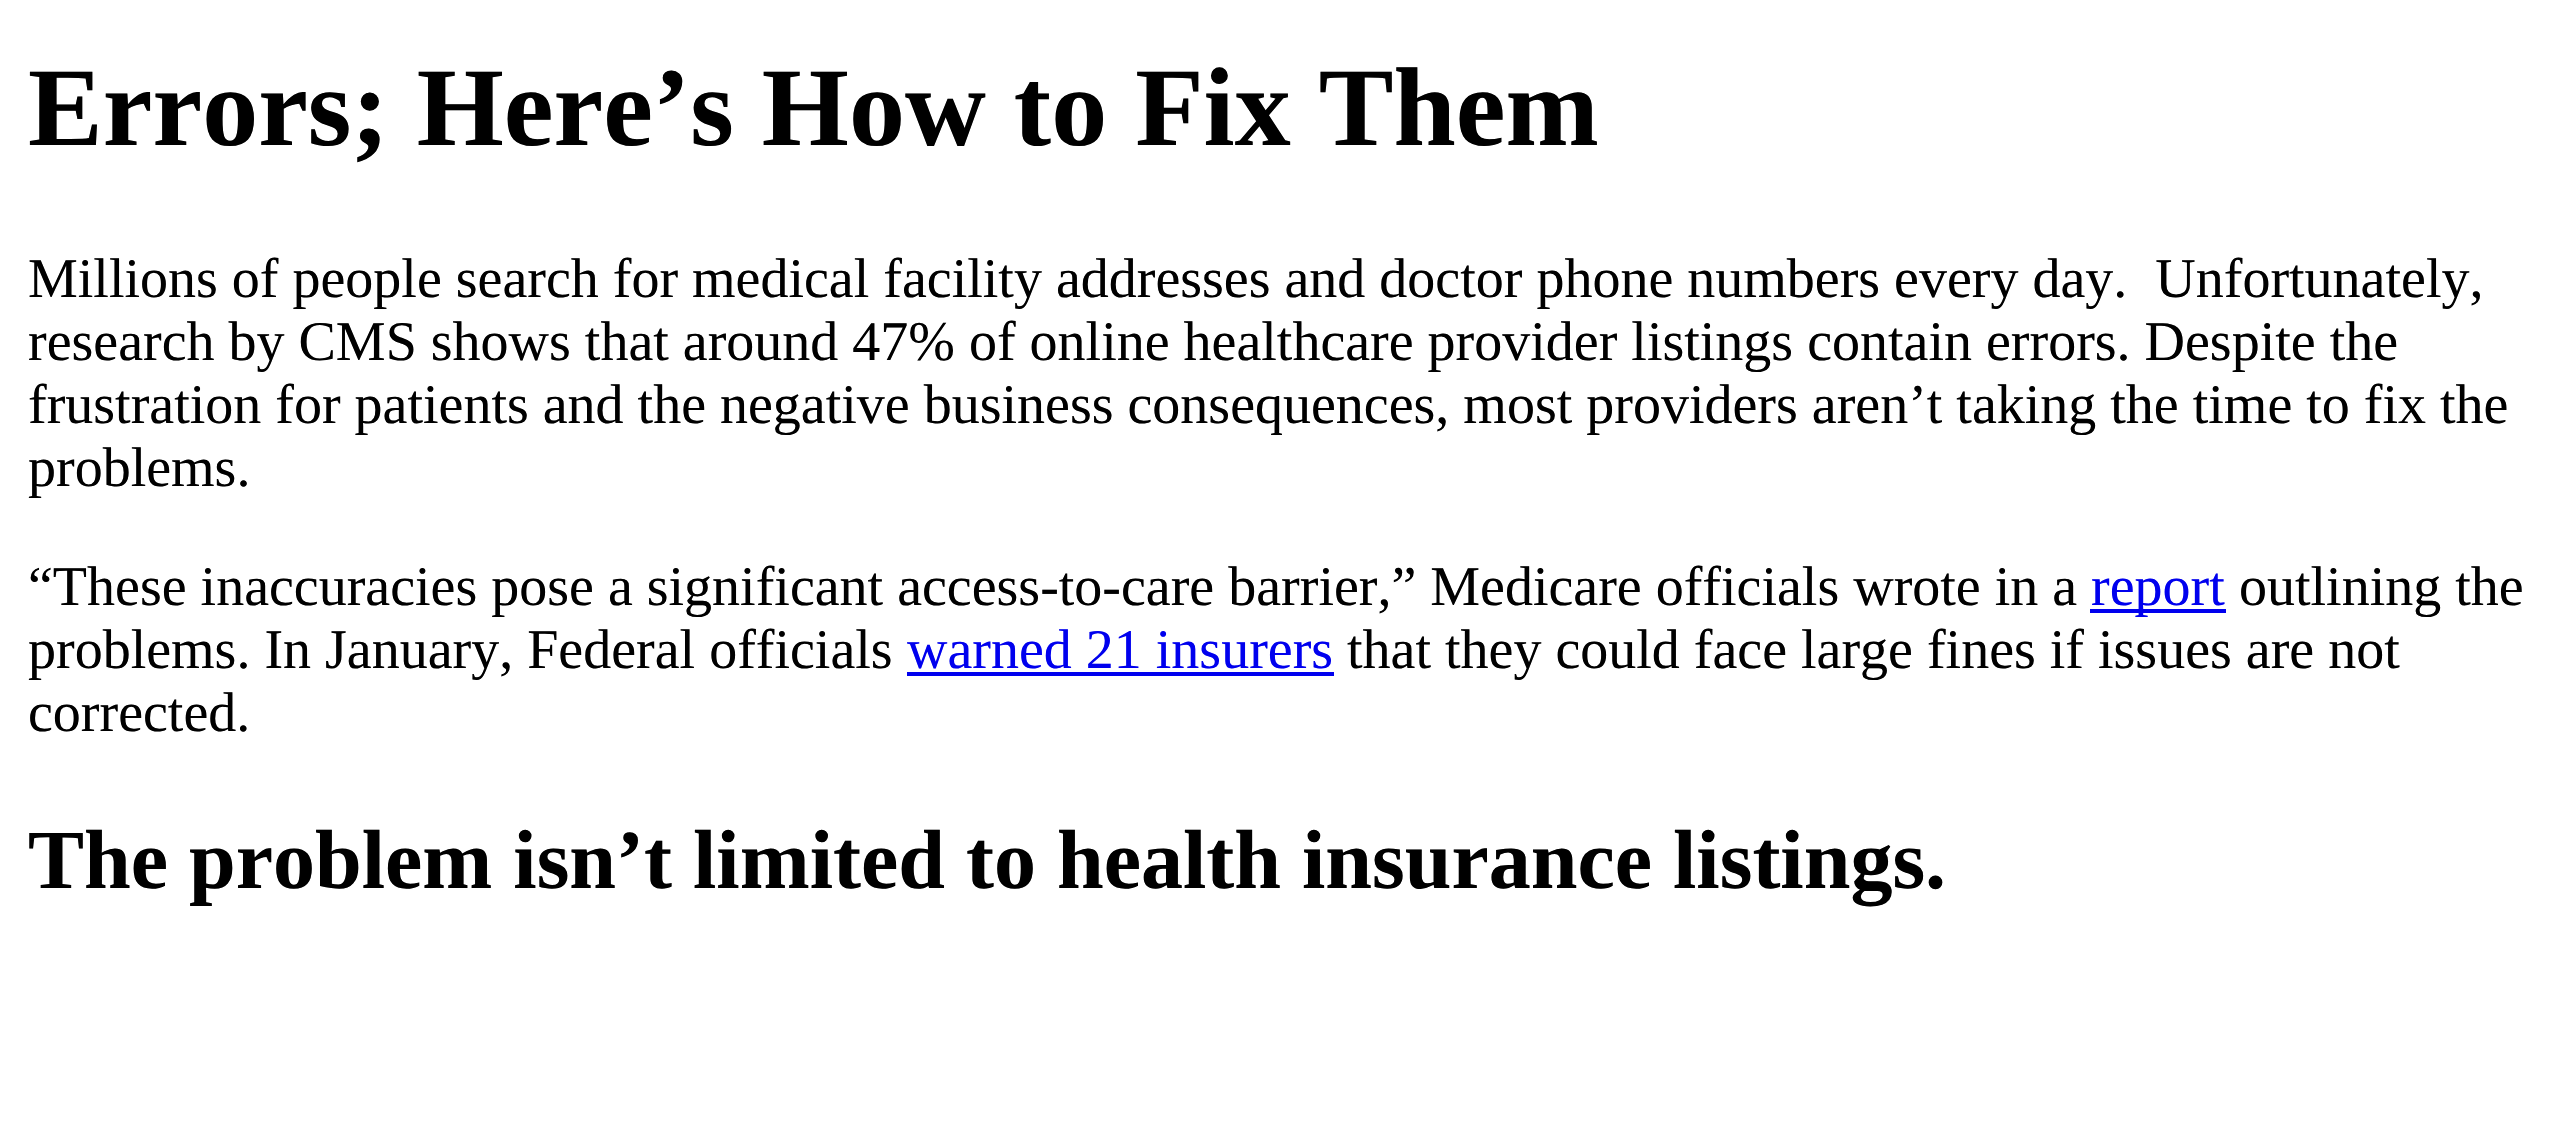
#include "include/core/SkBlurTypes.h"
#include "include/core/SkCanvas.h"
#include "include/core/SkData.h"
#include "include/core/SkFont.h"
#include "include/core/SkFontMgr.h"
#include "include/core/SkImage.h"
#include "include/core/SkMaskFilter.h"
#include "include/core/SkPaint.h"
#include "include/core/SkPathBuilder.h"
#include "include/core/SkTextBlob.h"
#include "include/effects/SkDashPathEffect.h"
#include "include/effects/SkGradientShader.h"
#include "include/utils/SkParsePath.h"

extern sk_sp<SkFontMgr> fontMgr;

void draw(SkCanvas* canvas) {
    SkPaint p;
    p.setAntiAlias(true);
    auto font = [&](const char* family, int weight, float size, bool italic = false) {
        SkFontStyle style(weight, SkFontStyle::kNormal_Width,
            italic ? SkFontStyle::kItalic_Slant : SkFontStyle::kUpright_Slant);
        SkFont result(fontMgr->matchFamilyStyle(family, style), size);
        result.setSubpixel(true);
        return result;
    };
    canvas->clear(0xFFFFFFFF);
    auto font1 = font("Liberation Serif", 700, 112);
    p.setColor(0xFF000000);
    canvas->drawString("Errors; Here’s How to Fix Them", 28, 145, font1, p);
    auto font2 = font("Liberation Serif", 400, 56);
    {
        const struct { const char* s; float x, y; } items[] = {
            {"Millions of people search for medical facility addresses and doctor phone numbers every day.  Unfortunately,", 28, 297},
            {"research by CMS shows that around 47% of online healthcare provider listings contain errors. Despite the", 28, 360},
            {"frustration for patients and the negative business consequences, most providers aren’t taking the time to fix the", 28, 423},
            {"problems.", 28, 486},
            {"“These inaccuracies pose a significant access-to-care barrier,” Medicare officials wrote in a", 28, 605},
        };
        for (auto [s, x, y] : items) {
            canvas->drawString(s, x, y, font2, p);
        }
    }
    p.setColor(0xFF0000EE);
    canvas->drawRect(SkRect::MakeLTRB(2090, 609, 2226, 613), p);
    canvas->drawString("report", 2091, 605, font2, p);
    p.setColor(0xFF000000);
    canvas->drawString("outlining the", 2239, 605, font2, p);
    canvas->drawString("problems. In January, Federal officials", 28, 668, font2, p);
    p.setColor(0xFF0000EE);
    canvas->drawString("warned 21 insurers", 907, 668, font2, p);
    canvas->drawRect(SkRect::MakeLTRB(907, 672, 1334, 676), p);
    p.setColor(0xFF000000);
    canvas->drawString("that they could face large fines if issues are not", 1347, 668, font2, p);
    canvas->drawString("corrected.", 28, 731, font2, p);
    auto font3 = font("Liberation Serif", 700, 84);
    canvas->drawString("The problem isn’t limited to health insurance listings.", 28, 888, font3, p);
}
